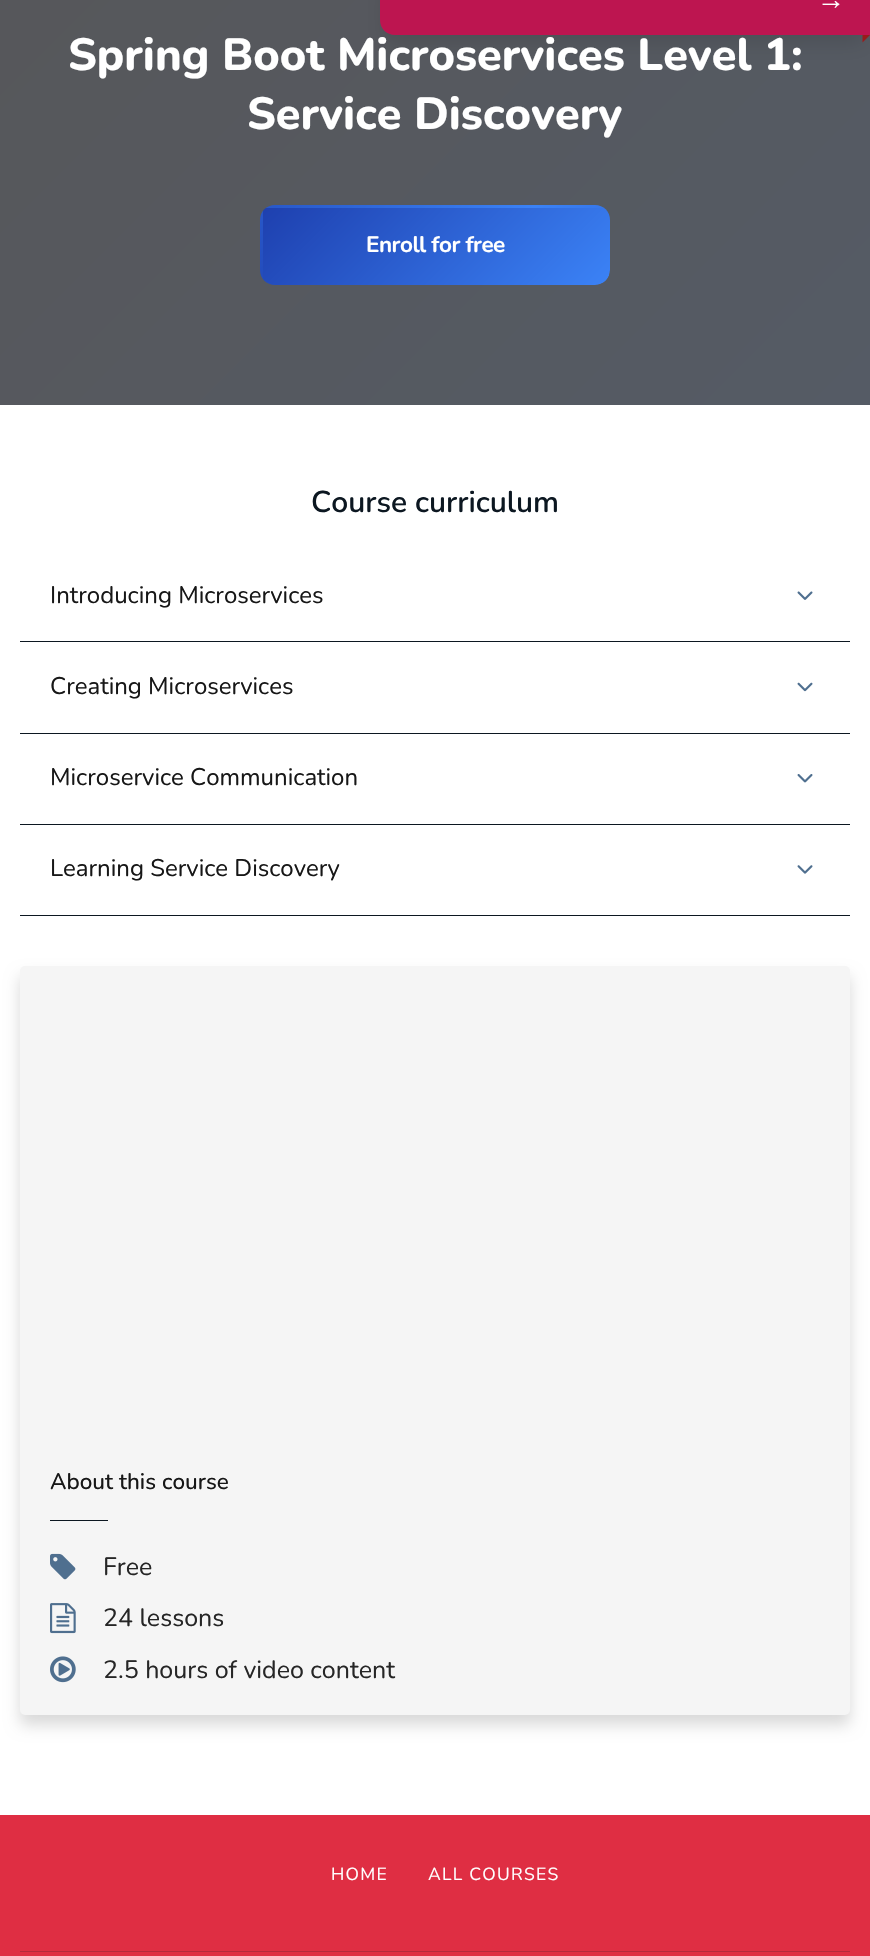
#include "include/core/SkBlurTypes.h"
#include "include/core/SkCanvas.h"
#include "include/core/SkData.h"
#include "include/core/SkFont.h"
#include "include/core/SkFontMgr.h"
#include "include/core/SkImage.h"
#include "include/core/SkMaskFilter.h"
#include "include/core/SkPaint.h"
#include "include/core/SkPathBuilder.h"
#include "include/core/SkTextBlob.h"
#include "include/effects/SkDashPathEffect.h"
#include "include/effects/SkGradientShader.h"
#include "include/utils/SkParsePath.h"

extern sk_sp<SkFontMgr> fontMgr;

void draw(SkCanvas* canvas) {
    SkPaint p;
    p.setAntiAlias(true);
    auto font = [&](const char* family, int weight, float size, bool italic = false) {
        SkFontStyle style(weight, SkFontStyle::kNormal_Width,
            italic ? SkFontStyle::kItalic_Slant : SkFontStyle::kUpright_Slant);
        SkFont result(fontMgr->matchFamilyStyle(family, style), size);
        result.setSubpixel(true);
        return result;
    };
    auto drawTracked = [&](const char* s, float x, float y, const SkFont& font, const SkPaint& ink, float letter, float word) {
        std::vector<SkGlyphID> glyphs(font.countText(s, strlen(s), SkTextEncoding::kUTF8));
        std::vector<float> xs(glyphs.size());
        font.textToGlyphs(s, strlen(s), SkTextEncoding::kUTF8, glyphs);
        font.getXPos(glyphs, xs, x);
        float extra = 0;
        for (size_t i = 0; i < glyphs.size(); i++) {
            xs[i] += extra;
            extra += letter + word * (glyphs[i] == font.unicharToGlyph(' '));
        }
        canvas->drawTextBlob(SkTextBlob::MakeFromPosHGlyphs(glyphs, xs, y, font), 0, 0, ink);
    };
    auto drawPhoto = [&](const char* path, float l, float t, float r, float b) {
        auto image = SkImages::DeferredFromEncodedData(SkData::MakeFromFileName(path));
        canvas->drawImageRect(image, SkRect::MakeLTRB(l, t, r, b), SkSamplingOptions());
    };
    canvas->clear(0xFFFFFFFF);
    {
        const SkColor colors[] = {0xFF56575A, 0xFF555B65};
        const float stops[] = {0, 1};
        const SkPoint ends[] = {{98, -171}, {772, 503}};
        p.setShader(SkGradientShader::MakeLinear(ends, colors, stops, 2, SkTileMode::kClamp));
        p.setAlpha(255);
    }
    canvas->drawRect(SkRect::MakeLTRB(0, 0, 870, 405), p);
    p.setShader(nullptr);
    p.setColor(0x1A000000);
    p.setMaskFilter(SkMaskFilter::MakeBlur(kNormal_SkBlurStyle, 9.5f));
    canvas->drawRoundRect(SkRect::MakeLTRB(384, -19, 866, 44), 11, 11, p);
    p.setMaskFilter(nullptr);
    p.setColor(0xFFBD1550);
    canvas->drawPath(SkPathBuilder().moveTo(380, -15).lineTo(870, -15).lineTo(870, 35).lineTo(395, 35).cubicTo(386.5f, 35, 380, 28.5f, 380, 20).close().detach(), p);
    auto font1 = font("Liberation Sans", 700, 28);
    p.setColor(0xFFFFFFFF);
    canvas->drawString("→", 817, 9, font1, p);
    p.setColor(0xFF991B1B);
    canvas->drawPath(SkPathBuilder().moveTo(862.5f, 42.5f).lineTo(862.5f, 35).lineTo(870, 35).close().detach(), p);
    auto font2 = font("Nunito", 800, 45);
    p.setColor(0xFFFFFFFF);
    canvas->drawString("Spring Boot Microservices Level 1:", 68, 70, font2, p);
    canvas->drawString("Service Discovery", 247, 129, font2, p);
    canvas->save();
    canvas->clipPath(SkPathBuilder().moveTo(275, 205).lineTo(595, 205).cubicTo(603.5f, 205, 610, 211.5f, 610, 220).lineTo(610, 270).cubicTo(610, 278.5f, 603.5f, 285, 595, 285).lineTo(275, 285).cubicTo(266.5f, 285, 260, 278.5f, 260, 270).lineTo(260, 220).cubicTo(260, 211.5f, 266.5f, 205, 275, 205).close().detach(), true);
    {
        const SkColor colors[] = {0xFF1E40AF, 0xFF3B82F6, 0xFF1E40AF};
        const float stops[] = {0, 0.5f, 1};
        const SkPoint ends[] = {{398, -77}, {818, 343}};
        p.setShader(SkGradientShader::MakeLinear(ends, colors, stops, 3, SkTileMode::kClamp));
        p.setAlpha(255);
    }
    canvas->drawRect(SkRect::MakeLTRB(263, 205, 610, 208), p);
    {
        const SkColor colors[] = {0xFF1E40AF, 0xFF3B82F6, 0xFF1E40AF};
        const float stops[] = {0, 0.5f, 1};
        const SkPoint ends[] = {{-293, 73}, {128, 493}};
        p.setShader(SkGradientShader::MakeLinear(ends, colors, stops, 3, SkTileMode::kClamp));
        p.setAlpha(255);
    }
    canvas->drawRect(SkRect::MakeLTRB(260, 208, 263, 285), p);
    {
        const SkColor colors[] = {0xFF1E40AF, 0xFF3B82F6, 0xFF1E40AF};
        const float stops[] = {0, 0.5f, 1};
        const SkPoint ends[] = {{398, 73}, {818, 493}};
        p.setShader(SkGradientShader::MakeLinear(ends, colors, stops, 3, SkTileMode::kClamp));
        p.setAlpha(255);
    }
    canvas->drawPath(SkPathBuilder().moveTo(263, 208).lineTo(610, 208).lineTo(610, 270).cubicTo(610, 278.5f, 603.5f, 285, 595, 285).lineTo(263, 285).close().detach(), p);
    canvas->restore();
    auto font3 = font("Nunito", 700, 22.5f);
    p.setShader(nullptr);
    p.setColor(0xFFFFFFFF);
    drawTracked("Enroll for free", 366, 252, font3, p, -0.5f, 0);
    auto font4 = font("Nunito", 600, 30);
    p.setColor(0xFF0C1721);
    canvas->drawString("Course curriculum", 311, 512, font4, p);
    canvas->drawRect(SkRect::MakeLTRB(20, 641, 850, 642), p);
    auto font5 = font("Nunito", 400, 24);
    p.setColor(0xFF171717);
    canvas->drawString("Introducing Microservices", 50, 603, font5, p);
    drawPhoto("media/1.png", 797, 591, 813, 600);
    p.setColor(0xFF0C1721);
    canvas->drawRect(SkRect::MakeLTRB(20, 733, 850, 734), p);
    p.setColor(0xFF171717);
    canvas->drawString("Creating Microservices", 50, 694, font5, p);
    drawPhoto("media/2.png", 797, 682, 813, 692);
    p.setColor(0xFF0C1721);
    canvas->drawRect(SkRect::MakeLTRB(20, 824, 850, 825), p);
    p.setColor(0xFF171717);
    canvas->drawString("Microservice Communication", 50, 785, font5, p);
    drawPhoto("media/3.png", 797, 774, 813, 783);
    p.setColor(0xFF0C1721);
    canvas->drawRect(SkRect::MakeLTRB(20, 915, 850, 916), p);
    p.setColor(0xFF171717);
    canvas->drawString("Learning Service Discovery", 50, 876, font5, p);
    drawPhoto("media/4.png", 797, 865, 813, 874);
    p.setColor(0x26000000);
    p.setMaskFilter(SkMaskFilter::MakeBlur(kNormal_SkBlurStyle, 7.5f));
    canvas->drawRoundRect(SkRect::MakeLTRB(20, 976, 850, 1725), 5, 5, p);
    p.setMaskFilter(nullptr);
    p.setColor(0xFFF5F5F5);
    canvas->drawRoundRect(SkRect::MakeLTRB(20, 966, 850, 1715), 5, 5, p);
    auto font6 = font("Nunito", 500, 22.5f);
    p.setColor(0xFF171717);
    canvas->drawString("About this course", 50, 1489, font6, p);
    p.setColor(0xFF0C1721);
    canvas->drawRect(SkRect::MakeLTRB(50, 1520, 108, 1521), p);
    drawPhoto("media/5.png", 50, 1553, 76, 1580);
    auto font7 = font("Nunito", 400, 25);
    p.setColor(0xFF262626);
    canvas->drawString("Free", 103, 1575, font7, p);
    drawPhoto("media/6.png", 50, 1603, 76, 1634);
    canvas->drawString("24 lessons", 103, 1626, font7, p);
    drawPhoto("media/7.png", 50, 1656, 76, 1683);
    canvas->drawString("2.5 hours of video content", 103, 1678, font7, p);
    p.setColor(0xFFDF2E43);
    canvas->drawRect(SkRect::MakeLTRB(0, 1815, 870, 1956), p);
    auto font8 = font("Nunito", 400, 17.5f);
    p.setColor(0xFFFFFFFF);
    drawTracked("HOME", 331, 1880, font8, p, 1.25f, 0);
    drawTracked("ALL COURSES", 428, 1880, font8, p, 1.25f, 0);
    p.setColor(0xFFB5293C);
    canvas->drawRect(SkRect::MakeLTRB(20, 1951, 850, 1952), p);
}
